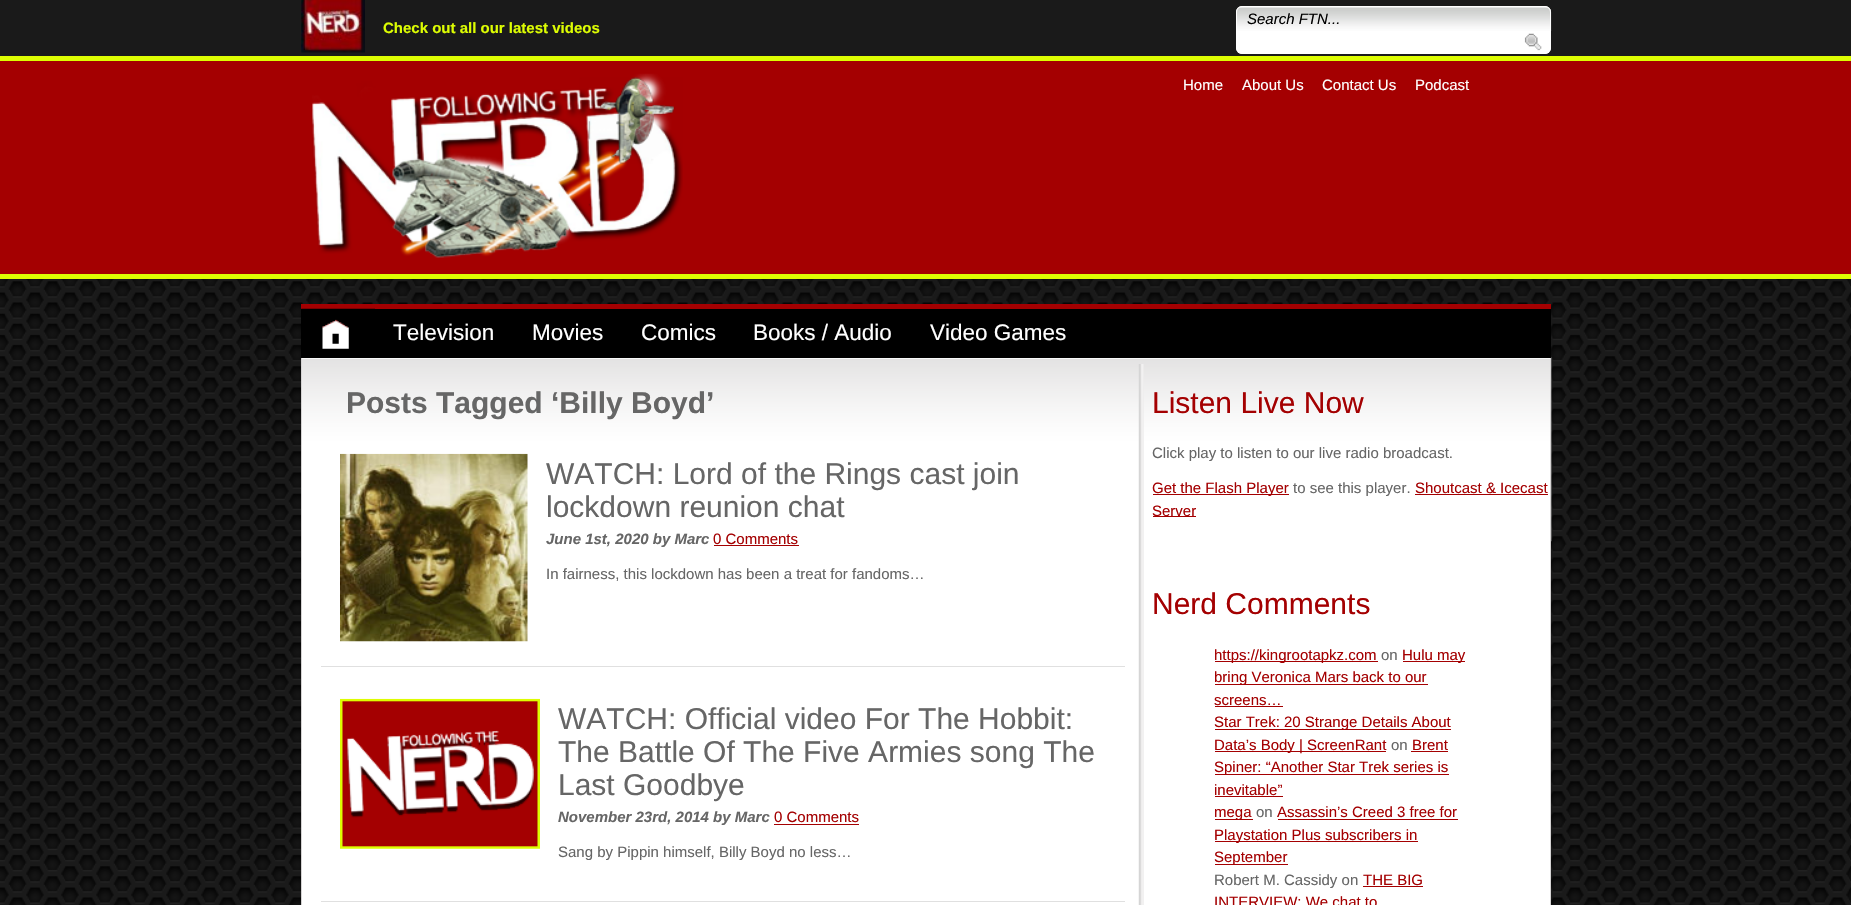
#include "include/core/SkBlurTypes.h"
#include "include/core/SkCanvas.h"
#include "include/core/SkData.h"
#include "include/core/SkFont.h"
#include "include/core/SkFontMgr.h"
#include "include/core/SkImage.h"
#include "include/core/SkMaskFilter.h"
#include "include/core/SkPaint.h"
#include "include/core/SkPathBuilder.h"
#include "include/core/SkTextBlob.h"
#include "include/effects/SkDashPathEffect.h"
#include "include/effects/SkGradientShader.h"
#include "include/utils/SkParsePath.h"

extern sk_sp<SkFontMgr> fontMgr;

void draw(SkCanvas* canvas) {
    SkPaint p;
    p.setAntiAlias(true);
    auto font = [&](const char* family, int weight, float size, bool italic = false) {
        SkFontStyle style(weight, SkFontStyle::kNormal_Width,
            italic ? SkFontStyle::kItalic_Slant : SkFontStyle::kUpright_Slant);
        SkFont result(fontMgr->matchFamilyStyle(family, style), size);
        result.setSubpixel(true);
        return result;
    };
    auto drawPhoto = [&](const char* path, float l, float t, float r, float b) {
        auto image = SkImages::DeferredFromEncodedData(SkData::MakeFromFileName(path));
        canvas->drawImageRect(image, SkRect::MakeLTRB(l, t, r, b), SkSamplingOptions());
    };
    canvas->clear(0xFFFFFFFF);
    p.setColor(0xFF1A1A1A);
    canvas->drawRect(SkRect::MakeLTRB(0, 0, 1851, 56), p);
    p.setColor(0xFFFFFFFF);
    canvas->drawRoundRect(SkRect::MakeLTRB(1236, 6, 1551, 54), 6, 6, p);
    drawPhoto("media/1.png", 1236, 7, 1552, 31);
    p.setStyle(SkPaint::kStroke_Style);
    p.setStrokeWidth(1);
    canvas->drawRoundRect(SkRect::MakeLTRB(1236.5f, 6.5f, 1550.5f, 53.5f), 5.5f, 5.5f, p);
    auto font1 = font("Liberation Sans", 400, 15, true);
    p.setStyle(SkPaint::kFill_Style);
    p.setColor(0xFF000000);
    canvas->drawString("Search FTN...", 1247, 24, font1, p);
    drawPhoto("media/2.png", 1524, 33, 1542, 51);
    drawPhoto("media/3.png", 301, 0, 365, 53);
    auto font2 = font("Liberation Sans", 700, 15);
    p.setColor(0xFFDDFD02);
    canvas->drawString("Check out all our latest videos", 383, 33, font2, p);
    {
        const struct { float l, t, r, b; SkColor color; } items[] = {
            {0, 61, 1851, 274, 0xFFA40001},
            {0, 56, 1851, 61, 0xFFDDFD02},
            {0, 274, 1851, 279, 0xFFDDFD02},
        };
        for (auto [l, t, r, b, color] : items) {
            p.setColor(color);
            canvas->drawRect(SkRect::MakeLTRB(l, t, r, b), p);
        }
    }
    drawPhoto("media/4.png", 312, 73, 683, 258);
    auto font3 = font("Liberation Sans", 400, 15);
    p.setColor(0xFFFFFFFF);
    {
        const struct { const char* s; float x, y; } items[] = {
            {"Home", 1183, 90},
            {"About Us", 1242, 90},
            {"Contact Us", 1322, 90},
            {"Podcast", 1415, 90},
        };
        for (auto [s, x, y] : items) {
            canvas->drawString(s, x, y, font3, p);
        }
    }
    drawPhoto("media/5.png", 0, 279, 1851, 905);
    canvas->drawRect(SkRect::MakeLTRB(302, 541, 1550, 905), p);
    drawPhoto("media/7.png", 302, 357, 1552, 542);
    p.setColor(0xFF000000);
    canvas->drawRect(SkRect::MakeLTRB(301, 309, 1551, 358), p);
    p.setColor(0xFFA40001);
    canvas->drawRect(SkRect::MakeLTRB(301, 304, 1551, 309), p);
    drawPhoto("media/6.png", 301, 308, 375, 349);
    auto font4 = font("Liberation Sans", 400, 22.5f);
    p.setColor(0xFFFFFFFF);
    {
        const struct { const char* s; float x, y; } items[] = {
            {"Television", 393, 340},
            {"Movies", 532, 340},
            {"Comics", 641, 340},
            {"Books / Audio", 753, 340},
            {"Video Games", 930, 340},
        };
        for (auto [s, x, y] : items) {
            canvas->drawString(s, x, y, font4, p);
        }
    }
    p.setColor(0xFFD5D3D3);
    canvas->drawRect(SkRect::MakeLTRB(1550, 358, 1551, 905), p);
    canvas->drawRect(SkRect::MakeLTRB(301, 358, 302, 905), p);
    drawPhoto("media/8.png", 1138, 364, 1144, 905);
    auto font5 = font("Liberation Sans", 700, 30);
    p.setColor(0xFF666666);
    canvas->drawString("Posts Tagged ‘Billy Boyd’", 346, 413, font5, p);
    p.setColor(0xFFE0E0E0);
    canvas->drawRect(SkRect::MakeLTRB(321, 666, 1125, 667), p);
    drawPhoto("media/9.png", 340, 453, 528, 642);
    auto font6 = font("Liberation Sans", 400, 30);
    p.setColor(0xFF666666);
    canvas->drawString("WATCH: Lord of the Rings cast join", 546, 484, font6, p);
    canvas->drawString("lockdown reunion chat", 546, 517, font6, p);
    auto font7 = font("Liberation Sans", 700, 15, true);
    canvas->drawString("June 1st, 2020 by Marc", 546, 544, font7, p);
    p.setColor(0xFFA40001);
    canvas->drawString("0 Comments", 713, 544, font3, p);
    canvas->drawRect(SkRect::MakeLTRB(714, 545, 799, 546), p);
    p.setColor(0xFF666666);
    canvas->drawString("In fairness, this lockdown has been a treat for fandoms…", 546, 579, font3, p);
    p.setColor(0xFFE0E0E0);
    canvas->drawRect(SkRect::MakeLTRB(321, 901, 1125, 902), p);
    drawPhoto("media/10.png", 340, 698, 540, 849);
    p.setColor(0xFF666666);
    {
        const struct { const char* s; float x, y; } items[] = {
            {"WATCH: Official video For The Hobbit:", 558, 729},
            {"The Battle Of The Five Armies song The", 558, 762},
            {"Last Goodbye", 558, 795},
        };
        for (auto [s, x, y] : items) {
            canvas->drawString(s, x, y, font6, p);
        }
    }
    canvas->drawString("November 23rd, 2014 by Marc", 558, 822, font7, p);
    p.setColor(0xFFA40001);
    canvas->drawString("0 Comments", 774, 822, font3, p);
    canvas->drawRect(SkRect::MakeLTRB(774, 824, 859, 825), p);
    p.setColor(0xFF666666);
    canvas->drawString("Sang by Pippin himself, Billy Boyd no less…", 558, 857, font3, p);
    p.setColor(0xFFA40001);
    canvas->drawString("Listen Live Now", 1152, 413, font6, p);
    p.setColor(0xFF666666);
    canvas->drawString("Click play to listen to our live radio broadcast.", 1152, 458, font3, p);
    p.setColor(0xFFA40001);
    canvas->drawRect(SkRect::MakeLTRB(1153, 494, 1289, 495), p);
    canvas->drawString("Get the Flash Player", 1152, 493, font3, p);
    p.setColor(0xFF666666);
    canvas->drawString("to see this player.", 1293, 493, font3, p);
    p.setColor(0xFFA40001);
    canvas->drawString("Shoutcast & Icecast", 1415, 493, font3, p);
    canvas->drawRect(SkRect::MakeLTRB(1415, 494, 1548, 495), p);
    canvas->drawRect(SkRect::MakeLTRB(1153, 516, 1196, 517), p);
    canvas->drawString("Server", 1152, 516, font3, p);
    canvas->drawString("Nerd Comments", 1152, 614, font6, p);
    canvas->drawRect(SkRect::MakeLTRB(1215, 661, 1378, 662), p);
    canvas->drawString("https://kingrootapkz.com", 1214, 660, font3, p);
    p.setColor(0xFF666666);
    canvas->drawString("on", 1381, 660, font3, p);
    p.setColor(0xFFA40001);
    canvas->drawRect(SkRect::MakeLTRB(1403, 661, 1465, 662), p);
    canvas->drawString("Hulu may", 1402, 660, font3, p);
    canvas->drawRect(SkRect::MakeLTRB(1215, 684, 1428, 685), p);
    canvas->drawString("bring Veronica Mars back to our", 1214, 682, font3, p);
    canvas->drawString("screens…", 1214, 705, font3, p);
    canvas->drawRect(SkRect::MakeLTRB(1215, 706, 1283, 707), p);
    canvas->drawRect(SkRect::MakeLTRB(1215, 729, 1451, 730), p);
    canvas->drawString("Star Trek: 20 Strange Details About", 1214, 727, font3, p);
    canvas->drawRect(SkRect::MakeLTRB(1215, 751, 1386, 752), p);
    canvas->drawString("Data’s Body | ScreenRant", 1214, 750, font3, p);
    p.setColor(0xFF666666);
    canvas->drawString("on", 1391, 750, font3, p);
    p.setColor(0xFFA40001);
    canvas->drawString("Brent", 1412, 750, font3, p);
    canvas->drawRect(SkRect::MakeLTRB(1411, 751, 1448, 752), p);
    canvas->drawRect(SkRect::MakeLTRB(1215, 774, 1449, 775), p);
    canvas->drawString("Spiner: “Another Star Trek series is", 1214, 772, font3, p);
    canvas->drawString("inevitable”", 1214, 795, font3, p);
    canvas->drawRect(SkRect::MakeLTRB(1215, 796, 1283, 797), p);
    canvas->drawRect(SkRect::MakeLTRB(1215, 819, 1253, 820), p);
    canvas->drawString("mega", 1214, 817, font3, p);
    p.setColor(0xFF666666);
    canvas->drawString("on", 1256, 817, font3, p);
    p.setColor(0xFFA40001);
    canvas->drawString("Assassin’s Creed 3 free for", 1277, 817, font3, p);
    canvas->drawRect(SkRect::MakeLTRB(1278, 819, 1458, 820), p);
    canvas->drawRect(SkRect::MakeLTRB(1215, 841, 1418, 842), p);
    canvas->drawString("Playstation Plus subscribers in", 1214, 840, font3, p);
    canvas->drawRect(SkRect::MakeLTRB(1215, 864, 1288, 865), p);
    canvas->drawString("September", 1214, 862, font3, p);
    p.setColor(0xFF666666);
    canvas->drawString("Robert M. Cassidy on", 1214, 885, font3, p);
    p.setColor(0xFFA40001);
    canvas->drawString("THE BIG", 1363, 885, font3, p);
    canvas->drawRect(SkRect::MakeLTRB(1363, 886, 1423, 887), p);
    canvas->drawString("INTERVIEW: We chat to", 1214, 907, font3, p);
}
